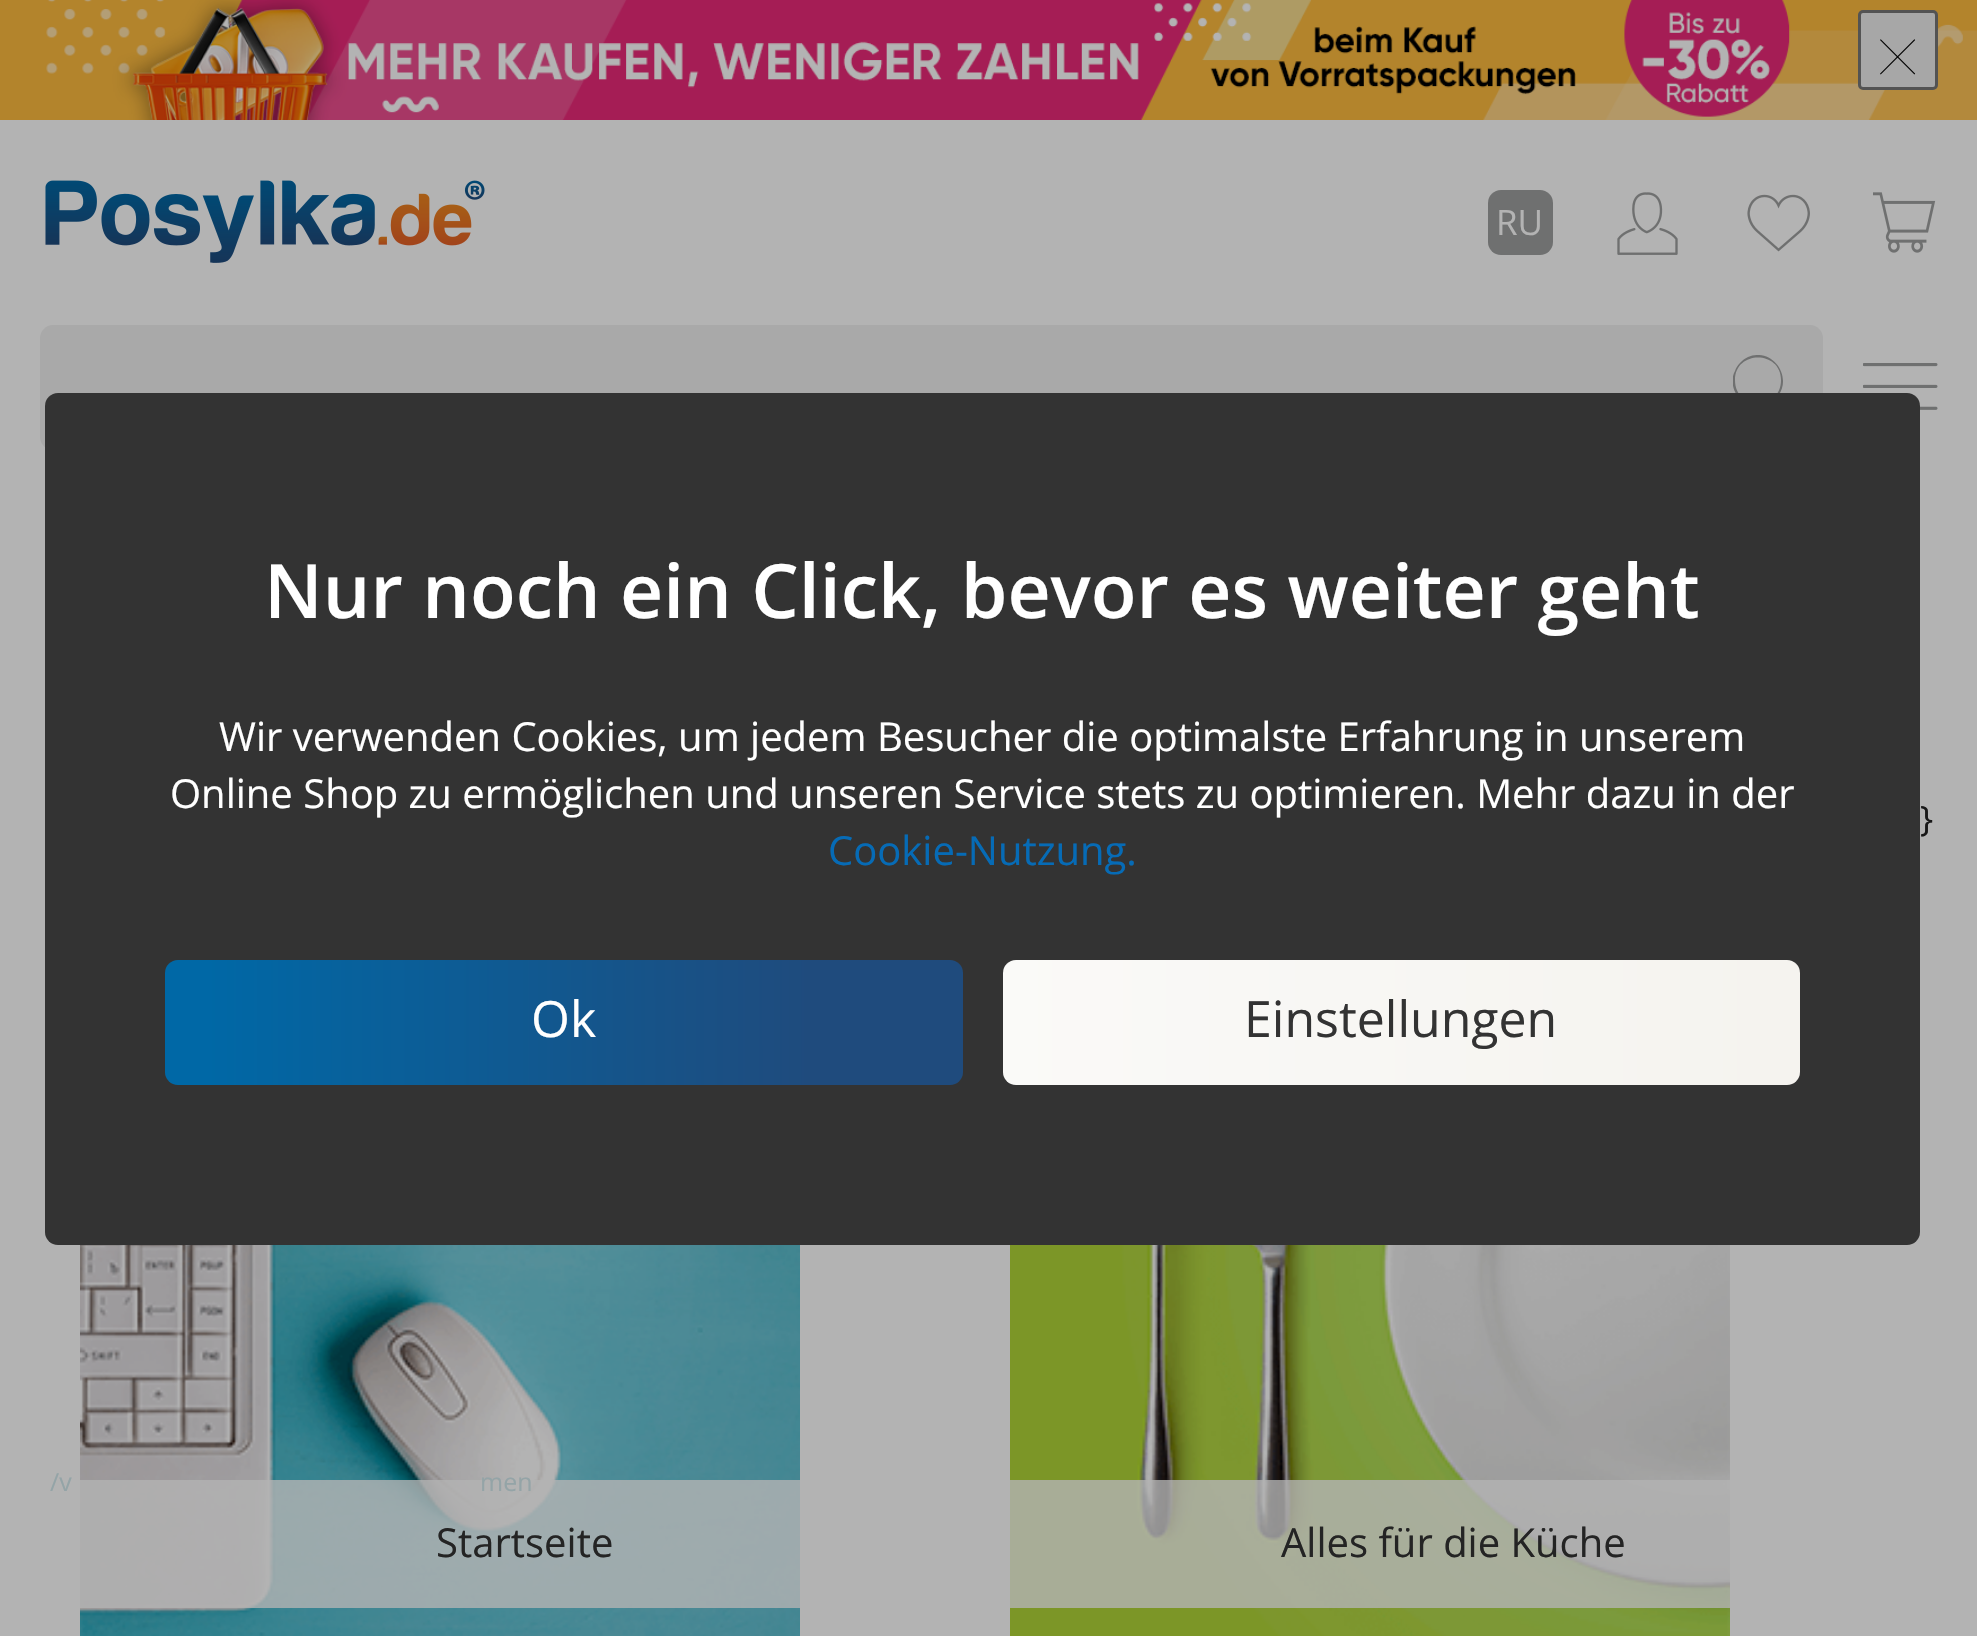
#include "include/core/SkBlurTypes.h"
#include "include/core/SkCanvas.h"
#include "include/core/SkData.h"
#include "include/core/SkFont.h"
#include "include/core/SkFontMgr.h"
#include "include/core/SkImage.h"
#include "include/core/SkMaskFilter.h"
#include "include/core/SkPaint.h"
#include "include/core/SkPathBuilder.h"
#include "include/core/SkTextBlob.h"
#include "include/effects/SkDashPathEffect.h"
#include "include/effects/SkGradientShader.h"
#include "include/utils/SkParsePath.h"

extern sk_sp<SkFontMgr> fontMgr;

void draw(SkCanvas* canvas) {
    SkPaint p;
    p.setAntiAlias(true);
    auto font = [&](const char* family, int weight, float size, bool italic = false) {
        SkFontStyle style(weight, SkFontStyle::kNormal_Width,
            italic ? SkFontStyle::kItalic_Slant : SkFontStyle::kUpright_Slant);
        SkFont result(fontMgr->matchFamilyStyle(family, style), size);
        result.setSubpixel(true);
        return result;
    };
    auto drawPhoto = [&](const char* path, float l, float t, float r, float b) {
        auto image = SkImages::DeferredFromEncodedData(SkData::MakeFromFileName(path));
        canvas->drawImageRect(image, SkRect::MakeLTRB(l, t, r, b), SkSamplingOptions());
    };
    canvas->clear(0xFFB3B3B3);
    drawPhoto("media/1.png", 0, 0, 1977, 120);
    p.setColor(0xFFA7A7A7);
    canvas->drawRoundRect(SkRect::MakeLTRB(1859.5f, 11.5f, 1936.5f, 88.5f), 3.5f, 3.5f, p);
    p.setStyle(SkPaint::kStroke_Style);
    p.setStrokeWidth(3);
    p.setColor(0xFF535353);
    canvas->drawRoundRect(SkRect::MakeLTRB(1859.5f, 11.5f, 1936.5f, 88.5f), 3.5f, 3.5f, p);
    drawPhoto("media/2.png", 1880, 39, 1916, 75);
    drawPhoto("media/3.png", 45, 180, 485, 263);
    p.setStyle(SkPaint::kFill_Style);
    p.setColor(0xFF6F7070);
    canvas->drawRoundRect(SkRect::MakeLTRB(1488, 190, 1553, 255), 13, 13, p);
    auto font1 = font("Open Sans", 400, 35);
    p.setColor(0xFFB3B3B3);
    canvas->drawString("RU", 1496, 235, font1, p);
    drawPhoto("media/4.png", 1617, 192, 1678, 255);
    drawPhoto("media/5.png", 1747, 194, 1810, 252);
    drawPhoto("media/6.png", 1873, 192, 1936, 253);
    p.setColor(0xFFA9A9A9);
    canvas->drawPath(SkPathBuilder().moveTo(53, 325).lineTo(1705, 325).lineTo(1705, 450).lineTo(53, 450).cubicTo(46, 450, 40, 444, 40, 437).lineTo(40, 338).cubicTo(40, 331, 46, 325, 53, 325).close().detach(), p);
    canvas->drawPath(SkPathBuilder().moveTo(1705, 325).lineTo(1810, 325).cubicTo(1817, 325, 1823, 331, 1823, 338).lineTo(1823, 437).cubicTo(1823, 444, 1817, 450, 1810, 450).lineTo(1705, 450).close().detach(), p);
    canvas->save();
    canvas->clipRect(SkRect::MakeLTRB(1733, 355, 1798, 420));
    p.setColor(0xFF6F7070);
    canvas->drawPath(SkPathBuilder().moveTo(1798, 415).lineTo(1778, 396).cubicTo(1793, 376, 1772, 347, 1748, 357).cubicTo(1742, 360, 1737, 365, 1735, 371).cubicTo(1731, 378, 1732, 388, 1737, 395).cubicTo(1745, 407, 1762, 409, 1773, 401).lineTo(1792, 420).close().moveTo(1735, 380).cubicTo(1735, 350, 1781, 350, 1781, 380).cubicTo(1781, 411, 1735, 411, 1735, 380).close().moveTo(1776, 399).lineTo(1777, 398).lineTo(1794, 415).lineTo(1792, 417).lineTo(1775, 399).close().detach(), p);
    canvas->restore();
    drawPhoto("media/7.png", 1863, 363, 1938, 410);
    auto font2 = font("Open Sans", 400, 25);
    p.setColor(0xFF94A4A7);
    canvas->drawString("/v", 50, 1491, font2, p);
    drawPhoto("media/8.png", 80, 1245, 800, 1636);
    p.setColor(0xCCB3B3B3);
    canvas->drawRect(SkRect::MakeLTRB(80, 1480, 800, 1608), p);
    p.setColor(0xFF94A4A7);
    canvas->drawString("men", 480, 1491, font2, p);
    auto font3 = font("Open Sans", 400, 40);
    p.setColor(0xFF242424);
    canvas->drawString("Startseite", 436, 1557, font3, p);
    drawPhoto("media/9.png", 1010, 1245, 1730, 1636);
    p.setColor(0xCCB3B3B3);
    canvas->drawRect(SkRect::MakeLTRB(1010, 1480, 1730, 1608), p);
    p.setColor(0xFF242424);
    canvas->drawString("Alles für die Küche", 1281, 1557, font3, p);
    p.setColor(0xFF333333);
    canvas->drawRoundRect(SkRect::MakeLTRB(45, 393, 1920, 1245), 13, 13, p);
    auto font4 = font("Open Sans", 600, 75);
    p.setColor(0xFFFFFFFF);
    canvas->drawString("Nur noch ein Click, bevor es weiter geht", 264, 618, font4, p);
    canvas->drawString("Wir verwenden Cookies, um jedem Besucher die optimalste Erfahrung in unserem", 219, 751, font3, p);
    canvas->drawString("Online Shop zu ermöglichen und unseren Service stets zu optimieren. Mehr dazu in der", 170, 808, font3, p);
    p.setColor(0xFF066BB6);
    canvas->drawString("Cookie-Nutzung.", 828, 865, font3, p);
    {
        const SkColor colors[] = {0xFF1F4B7D, 0xFF0068A6};
        const float stops[] = {0.19f, 0.95f};
        const SkPoint ends[] = {{963, 1022}, {165, 1023}};
        p.setShader(SkGradientShader::MakeLinear(ends, colors, stops, 2, SkTileMode::kClamp));
        p.setAlpha(255);
    }
    canvas->drawRoundRect(SkRect::MakeLTRB(165, 960, 963, 1085), 13, 13, p);
    auto font5 = font("Open Sans", 400, 50);
    p.setShader(nullptr);
    p.setColor(0xFFFFFFFF);
    canvas->drawString("Оk", 531, 1037, font5, p);
    {
        const SkColor colors[] = {0xFFF3F1EC, 0xFFFDFDFC};
        const float stops[] = {0, 1};
        const SkPoint ends[] = {{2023, 1022}, {652, 1023}};
        p.setShader(SkGradientShader::MakeLinear(ends, colors, stops, 2, SkTileMode::kClamp));
        p.setAlpha(255);
    }
    canvas->drawRoundRect(SkRect::MakeLTRB(1003, 960, 1800, 1085), 13, 13, p);
    p.setShader(nullptr);
    p.setColor(0xFF333333);
    canvas->drawString("Einstellungen", 1244, 1037, font5, p);
    p.setColor(0xFF171717);
    canvas->drawString("}", 1920, 831, font1, p);
}
